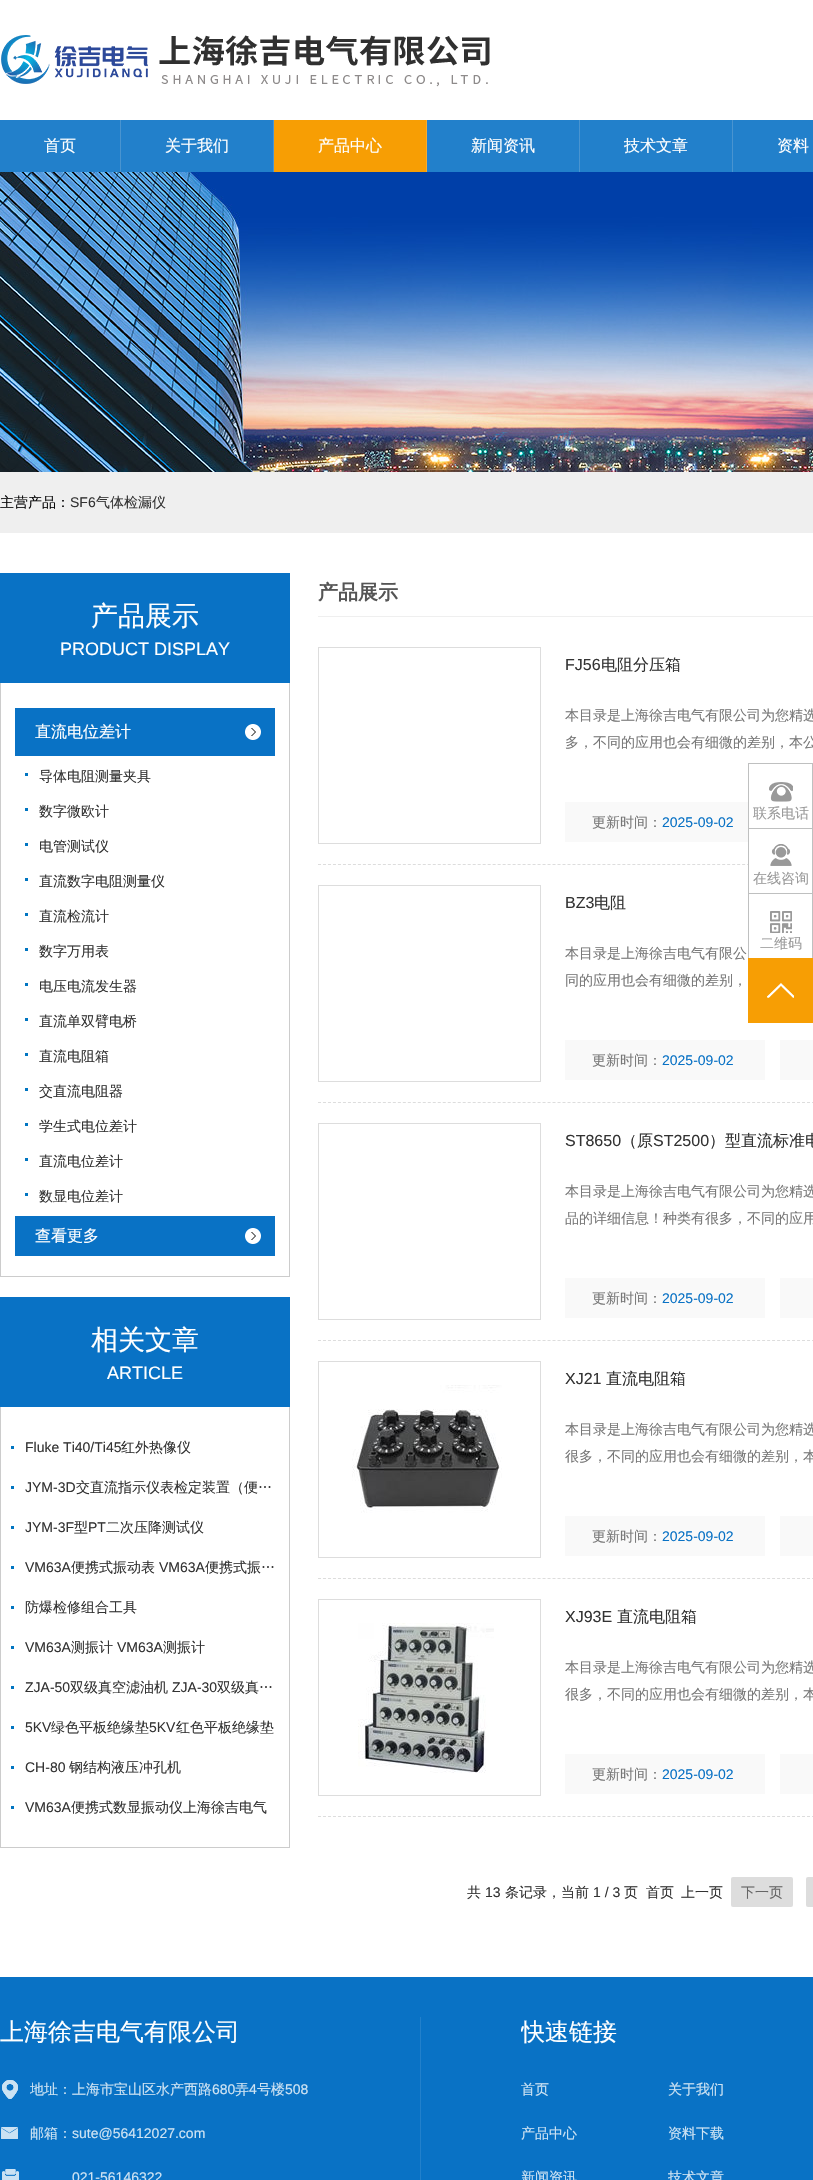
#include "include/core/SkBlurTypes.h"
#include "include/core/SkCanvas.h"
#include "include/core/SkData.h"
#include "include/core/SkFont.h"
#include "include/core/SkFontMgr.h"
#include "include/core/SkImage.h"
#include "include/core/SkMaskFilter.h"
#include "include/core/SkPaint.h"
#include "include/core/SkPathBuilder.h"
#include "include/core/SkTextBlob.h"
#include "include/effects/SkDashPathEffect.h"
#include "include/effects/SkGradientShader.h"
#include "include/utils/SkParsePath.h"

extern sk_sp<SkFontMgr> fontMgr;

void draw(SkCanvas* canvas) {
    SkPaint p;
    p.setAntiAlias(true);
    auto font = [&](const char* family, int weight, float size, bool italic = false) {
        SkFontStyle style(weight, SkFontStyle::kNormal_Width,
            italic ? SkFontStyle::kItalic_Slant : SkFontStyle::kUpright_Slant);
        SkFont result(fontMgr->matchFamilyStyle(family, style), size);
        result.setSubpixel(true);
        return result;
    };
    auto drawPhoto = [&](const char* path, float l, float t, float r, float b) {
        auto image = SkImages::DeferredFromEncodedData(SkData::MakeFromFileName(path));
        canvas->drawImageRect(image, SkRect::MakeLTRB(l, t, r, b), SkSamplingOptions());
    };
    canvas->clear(0xFFFFFFFF);
    drawPhoto("media/1.png", 1, 35, 490, 87);
    p.setColor(0xFF2280CB);
    canvas->drawRect(SkRect::MakeLTRB(0, 120, 813, 172), p);
    p.setColor(0xFF4994D0);
    canvas->drawRect(SkRect::MakeLTRB(120, 120, 121, 172), p);
    auto font1 = font("WenQuanYi Zen Hei", 500, 16);
    p.setColor(0xFFFFFFFF);
    canvas->drawString("首页", 44, 151, font1, p);
    p.setColor(0xFF4994D0);
    canvas->drawRect(SkRect::MakeLTRB(273, 120, 274, 172), p);
    p.setColor(0xFFFFFFFF);
    canvas->drawString("关于我们", 165, 151, font1, p);
    p.setColor(0xFFF79E04);
    canvas->drawRect(SkRect::MakeLTRB(274, 120, 426, 172), p);
    p.setColor(0xFFF4AC31);
    canvas->drawRect(SkRect::MakeLTRB(426, 120, 427, 172), p);
    p.setColor(0xFFFFFFFF);
    canvas->drawString("产品中心", 318, 151, font1, p);
    p.setColor(0xFF4994D0);
    canvas->drawRect(SkRect::MakeLTRB(579, 120, 580, 172), p);
    p.setColor(0xFFFFFFFF);
    canvas->drawString("新闻资讯", 471, 151, font1, p);
    p.setColor(0xFF4994D0);
    canvas->drawRect(SkRect::MakeLTRB(732, 120, 733, 172), p);
    p.setColor(0xFFFFFFFF);
    canvas->drawString("技术文章", 624, 151, font1, p);
    canvas->drawString("资料", 777, 151, font1, p);
    drawPhoto("media/2.png", 0, 172, 813, 472);
    p.setColor(0xFFEFEFEF);
    canvas->drawRect(SkRect::MakeLTRB(0, 472, 813, 533), p);
    auto font2 = font("WenQuanYi Zen Hei", 500, 14);
    p.setColor(0xFF040405);
    canvas->drawString("主营产品：", 0, 507, font2, p);
    auto font3 = font("Liberation Sans", 400, 14);
    p.setColor(0xFF333333);
    canvas->drawString("SF6", 70, 507, font3, p);
    canvas->drawString("气体检漏仪", 96, 507, font2, p);
    p.setColor(0xFF0972C5);
    canvas->drawRect(SkRect::MakeLTRB(0, 573, 290, 683), p);
    auto font4 = font("WenQuanYi Zen Hei", 500, 27);
    p.setColor(0xFFFFFFFF);
    canvas->drawString("产品展示", 91, 625, font4, p);
    auto font5 = font("Liberation Sans", 400, 18);
    canvas->drawString("PRODUCT DISPLAY", 60, 655, font5, p);
    {
        const struct { float l, t, r, b; SkColor color; } items[] = {
            {289, 683, 290, 1277, 0xFFCCCCCC},
            {0, 1276, 290, 1277, 0xFFCCCCCC},
            {0, 683, 1, 1277, 0xFFCCCCCC},
            {15, 708, 275, 756, 0xFF0972C5},
        };
        for (auto [l, t, r, b, color] : items) {
            p.setColor(color);
            canvas->drawRect(SkRect::MakeLTRB(l, t, r, b), p);
        }
    }
    drawPhoto("media/3.png", 245, 724, 261, 740);
    p.setColor(0xFFFFFFFF);
    canvas->drawString("直流电位差计", 35, 737, font1, p);
    p.setColor(0xFF0075C1);
    canvas->drawRect(SkRect::MakeLTRB(25, 773, 28, 776), p);
    p.setColor(0xFF333333);
    canvas->drawString("导体电阻测量夹具", 39, 781, font2, p);
    p.setColor(0xFF0075C1);
    canvas->drawRect(SkRect::MakeLTRB(25, 808, 28, 811), p);
    p.setColor(0xFF333333);
    canvas->drawString("数字微欧计", 39, 816, font2, p);
    p.setColor(0xFF0075C1);
    canvas->drawRect(SkRect::MakeLTRB(25, 843, 28, 846), p);
    p.setColor(0xFF333333);
    canvas->drawString("电管测试仪", 39, 851, font2, p);
    p.setColor(0xFF0075C1);
    canvas->drawRect(SkRect::MakeLTRB(25, 878, 28, 881), p);
    p.setColor(0xFF333333);
    canvas->drawString("直流数字电阻测量仪", 39, 886, font2, p);
    p.setColor(0xFF0075C1);
    canvas->drawRect(SkRect::MakeLTRB(25, 913, 28, 916), p);
    p.setColor(0xFF333333);
    canvas->drawString("直流检流计", 39, 921, font2, p);
    p.setColor(0xFF0075C1);
    canvas->drawRect(SkRect::MakeLTRB(25, 948, 28, 951), p);
    p.setColor(0xFF333333);
    canvas->drawString("数字万用表", 39, 956, font2, p);
    p.setColor(0xFF0075C1);
    canvas->drawRect(SkRect::MakeLTRB(25, 983, 28, 986), p);
    p.setColor(0xFF333333);
    canvas->drawString("电压电流发生器", 39, 991, font2, p);
    p.setColor(0xFF0075C1);
    canvas->drawRect(SkRect::MakeLTRB(25, 1018, 28, 1021), p);
    p.setColor(0xFF333333);
    canvas->drawString("直流单双臂电桥", 39, 1026, font2, p);
    p.setColor(0xFF0075C1);
    canvas->drawRect(SkRect::MakeLTRB(25, 1053, 28, 1056), p);
    p.setColor(0xFF333333);
    canvas->drawString("直流电阻箱", 39, 1061, font2, p);
    p.setColor(0xFF0075C1);
    canvas->drawRect(SkRect::MakeLTRB(25, 1088, 28, 1091), p);
    p.setColor(0xFF333333);
    canvas->drawString("交直流电阻器", 39, 1096, font2, p);
    p.setColor(0xFF0075C1);
    canvas->drawRect(SkRect::MakeLTRB(25, 1123, 28, 1126), p);
    p.setColor(0xFF333333);
    canvas->drawString("学生式电位差计", 39, 1131, font2, p);
    p.setColor(0xFF0075C1);
    canvas->drawRect(SkRect::MakeLTRB(25, 1158, 28, 1161), p);
    p.setColor(0xFF333333);
    canvas->drawString("直流电位差计", 39, 1166, font2, p);
    p.setColor(0xFF0075C1);
    canvas->drawRect(SkRect::MakeLTRB(25, 1193, 28, 1196), p);
    p.setColor(0xFF333333);
    canvas->drawString("数显电位差计", 39, 1201, font2, p);
    p.setColor(0xFF0972C5);
    canvas->drawRect(SkRect::MakeLTRB(15, 1216, 275, 1256), p);
    drawPhoto("media/3.png", 245, 1228, 261, 1244);
    p.setColor(0xFFFFFFFF);
    canvas->drawString("查看更多", 35, 1241, font1, p);
    p.setColor(0xFF0972C5);
    canvas->drawRect(SkRect::MakeLTRB(0, 1297, 290, 1407), p);
    p.setColor(0xFFFFFFFF);
    canvas->drawString("相关文章", 91, 1349, font4, p);
    canvas->drawString("ARTICLE", 107, 1379, font5, p);
    {
        const struct { float l, t, r, b; SkColor color; } items[] = {
            {289, 1407, 290, 1848, 0xFFCCCCCC},
            {0, 1847, 290, 1848, 0xFFCCCCCC},
            {0, 1407, 1, 1848, 0xFFCCCCCC},
            {11, 1446, 14, 1449, 0xFF0075C1},
        };
        for (auto [l, t, r, b, color] : items) {
            p.setColor(color);
            canvas->drawRect(SkRect::MakeLTRB(l, t, r, b), p);
        }
    }
    p.setColor(0xFF333333);
    canvas->drawString("Fluke Ti40/Ti45", 25, 1452, font3, p);
    canvas->drawString("红外热像仪", 121, 1452, font2, p);
    p.setColor(0xFF0075C1);
    canvas->drawRect(SkRect::MakeLTRB(11, 1486, 14, 1489), p);
    p.setColor(0xFF333333);
    canvas->drawString("JYM-3D", 25, 1492, font3, p);
    canvas->drawString("交直流指示仪表检定装置（便…", 76, 1492, font2, p);
    p.setColor(0xFF0075C1);
    canvas->drawRect(SkRect::MakeLTRB(11, 1526, 14, 1529), p);
    p.setColor(0xFF333333);
    canvas->drawString("JYM-3F", 25, 1532, font3, p);
    canvas->drawString("型", 74, 1532, font2, p);
    canvas->drawString("PT", 88, 1532, font3, p);
    canvas->drawString("二次压降测试仪", 106, 1532, font2, p);
    p.setColor(0xFF0075C1);
    canvas->drawRect(SkRect::MakeLTRB(11, 1566, 14, 1569), p);
    p.setColor(0xFF333333);
    canvas->drawString("VM63A", 25, 1572, font3, p);
    canvas->drawString("便携式振动表", 71, 1572, font2, p);
    canvas->drawString("VM63A", 159, 1572, font3, p);
    canvas->drawString("便携式振…", 205, 1572, font2, p);
    p.setColor(0xFF0075C1);
    canvas->drawRect(SkRect::MakeLTRB(11, 1606, 14, 1609), p);
    p.setColor(0xFF333333);
    canvas->drawString("防爆检修组合工具", 25, 1612, font2, p);
    p.setColor(0xFF0075C1);
    canvas->drawRect(SkRect::MakeLTRB(11, 1646, 14, 1649), p);
    p.setColor(0xFF333333);
    canvas->drawString("VM63A", 25, 1652, font3, p);
    canvas->drawString("测振计", 71, 1652, font2, p);
    canvas->drawString("VM63A", 117, 1652, font3, p);
    canvas->drawString("测振计", 163, 1652, font2, p);
    p.setColor(0xFF0075C1);
    canvas->drawRect(SkRect::MakeLTRB(11, 1686, 14, 1689), p);
    p.setColor(0xFF333333);
    canvas->drawString("ZJA-50", 25, 1692, font3, p);
    canvas->drawString("双级真空滤油机", 70, 1692, font2, p);
    canvas->drawString("ZJA-30", 172, 1692, font3, p);
    canvas->drawString("双级真…", 217, 1692, font2, p);
    p.setColor(0xFF0075C1);
    canvas->drawRect(SkRect::MakeLTRB(11, 1726, 14, 1729), p);
    p.setColor(0xFF333333);
    canvas->drawString("5KV", 25, 1732, font3, p);
    canvas->drawString("绿色平板绝缘垫", 51, 1732, font2, p);
    canvas->drawString("5KV", 149, 1732, font3, p);
    canvas->drawString("红色平板绝缘垫", 176, 1732, font2, p);
    p.setColor(0xFF0075C1);
    canvas->drawRect(SkRect::MakeLTRB(11, 1766, 14, 1769), p);
    p.setColor(0xFF333333);
    canvas->drawString("CH-80", 25, 1772, font3, p);
    canvas->drawString("钢结构液压冲孔机", 69, 1772, font2, p);
    p.setColor(0xFF0075C1);
    canvas->drawRect(SkRect::MakeLTRB(11, 1806, 14, 1809), p);
    p.setColor(0xFF333333);
    canvas->drawString("VM63A", 25, 1812, font3, p);
    canvas->drawString("便携式数显振动仪上海徐吉电气", 71, 1812, font2, p);
    p.setColor(0xFFEFEFEF);
    canvas->drawRect(SkRect::MakeLTRB(318, 616, 813, 617), p);
    auto font6 = font("WenQuanYi Zen Hei", 700, 20);
    p.setColor(0xFF555555);
    canvas->drawString("产品展示", 318, 599, font6, p);
    p.setStyle(SkPaint::kStroke_Style);
    p.setStrokeWidth(1);
    p.setColor(0xFFDDDDDD);
    p.setPathEffect(SkDashPathEffect::Make({{3, 1.99f}}, 0));
    canvas->drawPath(SkPathBuilder().moveTo(318, 864.5f).lineTo(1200, 864.5f).detach(), p);
    p.setPathEffect(nullptr);
    canvas->drawRect(SkRect::MakeLTRB(318.5f, 647.5f, 540.5f, 843.5f), p);
    auto font7 = font("Liberation Sans", 400, 16);
    p.setStyle(SkPaint::kFill_Style);
    p.setColor(0xFF333333);
    canvas->drawString("FJ56", 565, 670, font7, p);
    canvas->drawString("电阻分压箱", 601, 670, font1, p);
    p.setColor(0xFF777777);
    canvas->drawString("本目录是上海徐吉电气有限公司为您精选", 565, 720, font2, p);
    canvas->drawString("多，不同的应用也会有细微的差别，本公", 565, 747, font2, p);
    p.setColor(0xFFF9F9F9);
    canvas->drawRect(SkRect::MakeLTRB(565, 802, 748, 842), p);
    p.setColor(0xFF777777);
    canvas->drawString("更新时间：", 592, 827, font2, p);
    p.setColor(0xFF0972C5);
    canvas->drawString("2025-09-02", 662, 827, font3, p);
    p.setStyle(SkPaint::kStroke_Style);
    p.setColor(0xFFDDDDDD);
    p.setPathEffect(SkDashPathEffect::Make({{3, 1.99f}}, 0));
    canvas->drawPath(SkPathBuilder().moveTo(318, 1102.5f).lineTo(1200, 1102.5f).detach(), p);
    p.setPathEffect(nullptr);
    canvas->drawRect(SkRect::MakeLTRB(318.5f, 885.5f, 540.5f, 1081.5f), p);
    p.setStyle(SkPaint::kFill_Style);
    p.setColor(0xFF333333);
    canvas->drawString("BZ3", 565, 908, font7, p);
    canvas->drawString("电阻", 594, 908, font1, p);
    p.setColor(0xFF777777);
    canvas->drawString("本目录是上海徐吉电气有限公", 565, 958, font2, p);
    canvas->drawString("同的应用也会有细微的差别，", 565, 985, font2, p);
    p.setColor(0xFFF9F9F9);
    canvas->drawRect(SkRect::MakeLTRB(565, 1040, 765, 1080), p);
    p.setColor(0xFF777777);
    canvas->drawString("更新时间：", 592, 1065, font2, p);
    p.setColor(0xFF0972C5);
    canvas->drawString("2025-09-02", 662, 1065, font3, p);
    p.setColor(0xFFF9F9F9);
    canvas->drawRect(SkRect::MakeLTRB(780, 1040, 813, 1080), p);
    p.setStyle(SkPaint::kStroke_Style);
    p.setColor(0xFFDDDDDD);
    p.setPathEffect(SkDashPathEffect::Make({{3, 1.99f}}, 0));
    canvas->drawPath(SkPathBuilder().moveTo(318, 1340.5f).lineTo(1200, 1340.5f).detach(), p);
    p.setPathEffect(nullptr);
    canvas->drawRect(SkRect::MakeLTRB(318.5f, 1123.5f, 540.5f, 1319.5f), p);
    p.setStyle(SkPaint::kFill_Style);
    p.setColor(0xFF333333);
    canvas->drawString("ST8650", 565, 1146, font7, p);
    canvas->drawString("（原", 621, 1146, font1, p);
    canvas->drawString("ST2500", 653, 1146, font7, p);
    canvas->drawString("）型直流标准电", 709, 1146, font1, p);
    p.setColor(0xFF777777);
    canvas->drawString("本目录是上海徐吉电气有限公司为您精选", 565, 1196, font2, p);
    canvas->drawString("品的详细信息！种类有很多，不同的应用", 565, 1223, font2, p);
    p.setColor(0xFFF9F9F9);
    canvas->drawRect(SkRect::MakeLTRB(565, 1278, 765, 1318), p);
    p.setColor(0xFF777777);
    canvas->drawString("更新时间：", 592, 1303, font2, p);
    p.setColor(0xFF0972C5);
    canvas->drawString("2025-09-02", 662, 1303, font3, p);
    p.setColor(0xFFF9F9F9);
    canvas->drawRect(SkRect::MakeLTRB(780, 1278, 813, 1318), p);
    p.setStyle(SkPaint::kStroke_Style);
    p.setColor(0xFFDDDDDD);
    p.setPathEffect(SkDashPathEffect::Make({{3, 1.99f}}, 0));
    canvas->drawPath(SkPathBuilder().moveTo(318, 1578.5f).lineTo(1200, 1578.5f).detach(), p);
    p.setPathEffect(nullptr);
    canvas->drawRect(SkRect::MakeLTRB(318.5f, 1361.5f, 540.5f, 1557.5f), p);
    drawPhoto("media/4.png", 352, 1385, 502, 1513);
    p.setStyle(SkPaint::kFill_Style);
    p.setColor(0xFF333333);
    canvas->drawString("XJ21", 565, 1384, font7, p);
    canvas->drawString("直流电阻箱", 606, 1384, font1, p);
    p.setColor(0xFF777777);
    canvas->drawString("本目录是上海徐吉电气有限公司为您精选", 565, 1434, font2, p);
    canvas->drawString("很多，不同的应用也会有细微的差别，本", 565, 1461, font2, p);
    p.setColor(0xFFF9F9F9);
    canvas->drawRect(SkRect::MakeLTRB(565, 1516, 765, 1556), p);
    p.setColor(0xFF777777);
    canvas->drawString("更新时间：", 592, 1541, font2, p);
    p.setColor(0xFF0972C5);
    canvas->drawString("2025-09-02", 662, 1541, font3, p);
    p.setColor(0xFFF9F9F9);
    canvas->drawRect(SkRect::MakeLTRB(780, 1516, 813, 1556), p);
    p.setStyle(SkPaint::kStroke_Style);
    p.setColor(0xFFDDDDDD);
    p.setPathEffect(SkDashPathEffect::Make({{3, 1.99f}}, 0));
    canvas->drawPath(SkPathBuilder().moveTo(318, 1816.5f).lineTo(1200, 1816.5f).detach(), p);
    p.setPathEffect(nullptr);
    canvas->drawRect(SkRect::MakeLTRB(318.5f, 1599.5f, 540.5f, 1795.5f), p);
    drawPhoto("media/5.png", 358, 1623, 494, 1773);
    p.setStyle(SkPaint::kFill_Style);
    p.setColor(0xFF333333);
    canvas->drawString("XJ93E", 565, 1622, font7, p);
    canvas->drawString("直流电阻箱", 617, 1622, font1, p);
    p.setColor(0xFF777777);
    canvas->drawString("本目录是上海徐吉电气有限公司为您精选", 565, 1672, font2, p);
    canvas->drawString("很多，不同的应用也会有细微的差别，本", 565, 1699, font2, p);
    p.setColor(0xFFF9F9F9);
    canvas->drawRect(SkRect::MakeLTRB(565, 1754, 765, 1794), p);
    p.setColor(0xFF777777);
    canvas->drawString("更新时间：", 592, 1779, font2, p);
    p.setColor(0xFF0972C5);
    canvas->drawString("2025-09-02", 662, 1779, font3, p);
    p.setColor(0xFFF9F9F9);
    canvas->drawRect(SkRect::MakeLTRB(780, 1754, 813, 1794), p);
    p.setColor(0xFF333333);
    canvas->drawString("共", 467, 1897, font2, p);
    canvas->drawString("13", 485, 1897, font3, p);
    canvas->drawString("条记录，当前", 505, 1897, font2, p);
    canvas->drawString("1 / 3", 593, 1897, font3, p);
    {
        const struct { const char* s; float x, y; } items[] = {
            {"页", 624, 1897},
            {"首页", 646, 1897},
            {"上一页", 681, 1897},
        };
        for (auto [s, x, y] : items) {
            canvas->drawString(s, x, y, font2, p);
        }
    }
    p.setColor(0xFFDDDDDD);
    canvas->drawRoundRect(SkRect::MakeLTRB(731, 1877, 793, 1907), 2, 2, p);
    p.setColor(0xFF666666);
    canvas->drawString("下一页", 741, 1897, font2, p);
    p.setColor(0xFFDDDDDD);
    canvas->drawRoundRect(SkRect::MakeLTRB(806, 1877, 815, 1907), 2, 2, p);
    drawPhoto("media/6.png", 769, 782, 793, 802);
    {
        const struct { float l, t, r, b; SkColor color; } items[] = {
            {748, 763, 813, 764, 0xFFBFC0C0},
            {812, 763, 813, 828, 0xFFBFC0C0},
            {748, 763, 749, 828, 0xFFBFC0C0},
        };
        for (auto [l, t, r, b, color] : items) {
            p.setColor(color);
            canvas->drawRect(SkRect::MakeLTRB(l, t, r, b), p);
        }
    }
    p.setColor(0xFF999999);
    canvas->drawString("联系电话", 753, 818, font2, p);
    p.setColor(0xFFFFFFFF);
    canvas->drawRect(SkRect::MakeLTRB(749, 864, 810, 865), p);
    drawPhoto("media/7.png", 770, 844, 792, 866);
    {
        const struct { float l, t, r, b; SkColor color; } items[] = {
            {748, 828, 813, 829, 0xFFBFC0C0},
            {812, 828, 813, 893, 0xFFBFC0C0},
            {748, 828, 749, 893, 0xFFBFC0C0},
        };
        for (auto [l, t, r, b, color] : items) {
            p.setColor(color);
            canvas->drawRect(SkRect::MakeLTRB(l, t, r, b), p);
        }
    }
    p.setColor(0xFF999999);
    canvas->drawString("在线咨询", 753, 883, font2, p);
    drawPhoto("media/8.png", 770, 911, 792, 933);
    {
        const struct { float l, t, r, b; SkColor color; } items[] = {
            {748, 893, 813, 894, 0xFFBFC0C0},
            {812, 893, 813, 958, 0xFFBFC0C0},
            {748, 893, 749, 958, 0xFFBFC0C0},
        };
        for (auto [l, t, r, b, color] : items) {
            p.setColor(color);
            canvas->drawRect(SkRect::MakeLTRB(l, t, r, b), p);
        }
    }
    p.setColor(0xFF999999);
    canvas->drawString("二维码", 760, 948, font2, p);
    p.setColor(0xFFF79E04);
    canvas->drawRect(SkRect::MakeLTRB(748, 958, 813, 1023), p);
    drawPhoto("media/9.png", 767, 983, 794, 998);
    p.setColor(0xFF0972C5);
    canvas->drawRect(SkRect::MakeLTRB(0, 1977, 813, 2180), p);
    auto font8 = font("WenQuanYi Zen Hei", 500, 24);
    p.setColor(0xFFFFFFFF);
    canvas->drawString("上海徐吉电气有限公司", 0, 2040, font8, p);
    drawPhoto("media/10.png", 2, 2080, 18, 2099);
    p.setColor(0xFFCEE3F3);
    canvas->drawString("地址：上海市宝山区水产西路", 30, 2094, font2, p);
    canvas->drawString("680", 212, 2094, font3, p);
    canvas->drawString("弄", 235, 2094, font2, p);
    canvas->drawString("4", 249, 2094, font3, p);
    canvas->drawString("号楼", 257, 2094, font2, p);
    canvas->drawString("508", 285, 2094, font3, p);
    drawPhoto("media/11.png", 1, 2127, 18, 2139);
    canvas->drawString("邮箱：", 30, 2138, font2, p);
    canvas->drawString("sute@56412027.com", 72, 2138, font3, p);
    drawPhoto("media/12.png", 2, 2169, 19, 2180);
    canvas->drawString("021-56146322", 72, 2182, font3, p);
    p.setColor(0xFF2280CB);
    canvas->drawRect(SkRect::MakeLTRB(420, 2017, 421, 2180), p);
    canvas->save();
    canvas->clipRect(SkRect::MakeLTRB(521, 2017, 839, 2047));
    p.setColor(0xFFFFFFFF);
    canvas->drawString("快速链接", 521, 2040, font8, p);
    canvas->restore();
    p.setColor(0xFFCEE3F3);
    {
        const struct { const char* s; float x, y; } items[] = {
            {"首页", 521, 2094},
            {"关于我们", 668, 2094},
            {"产品中心", 521, 2138},
            {"资料下载", 668, 2138},
            {"新闻资讯", 521, 2182},
            {"技术文章", 668, 2182},
        };
        for (auto [s, x, y] : items) {
            canvas->drawString(s, x, y, font2, p);
        }
    }
}
